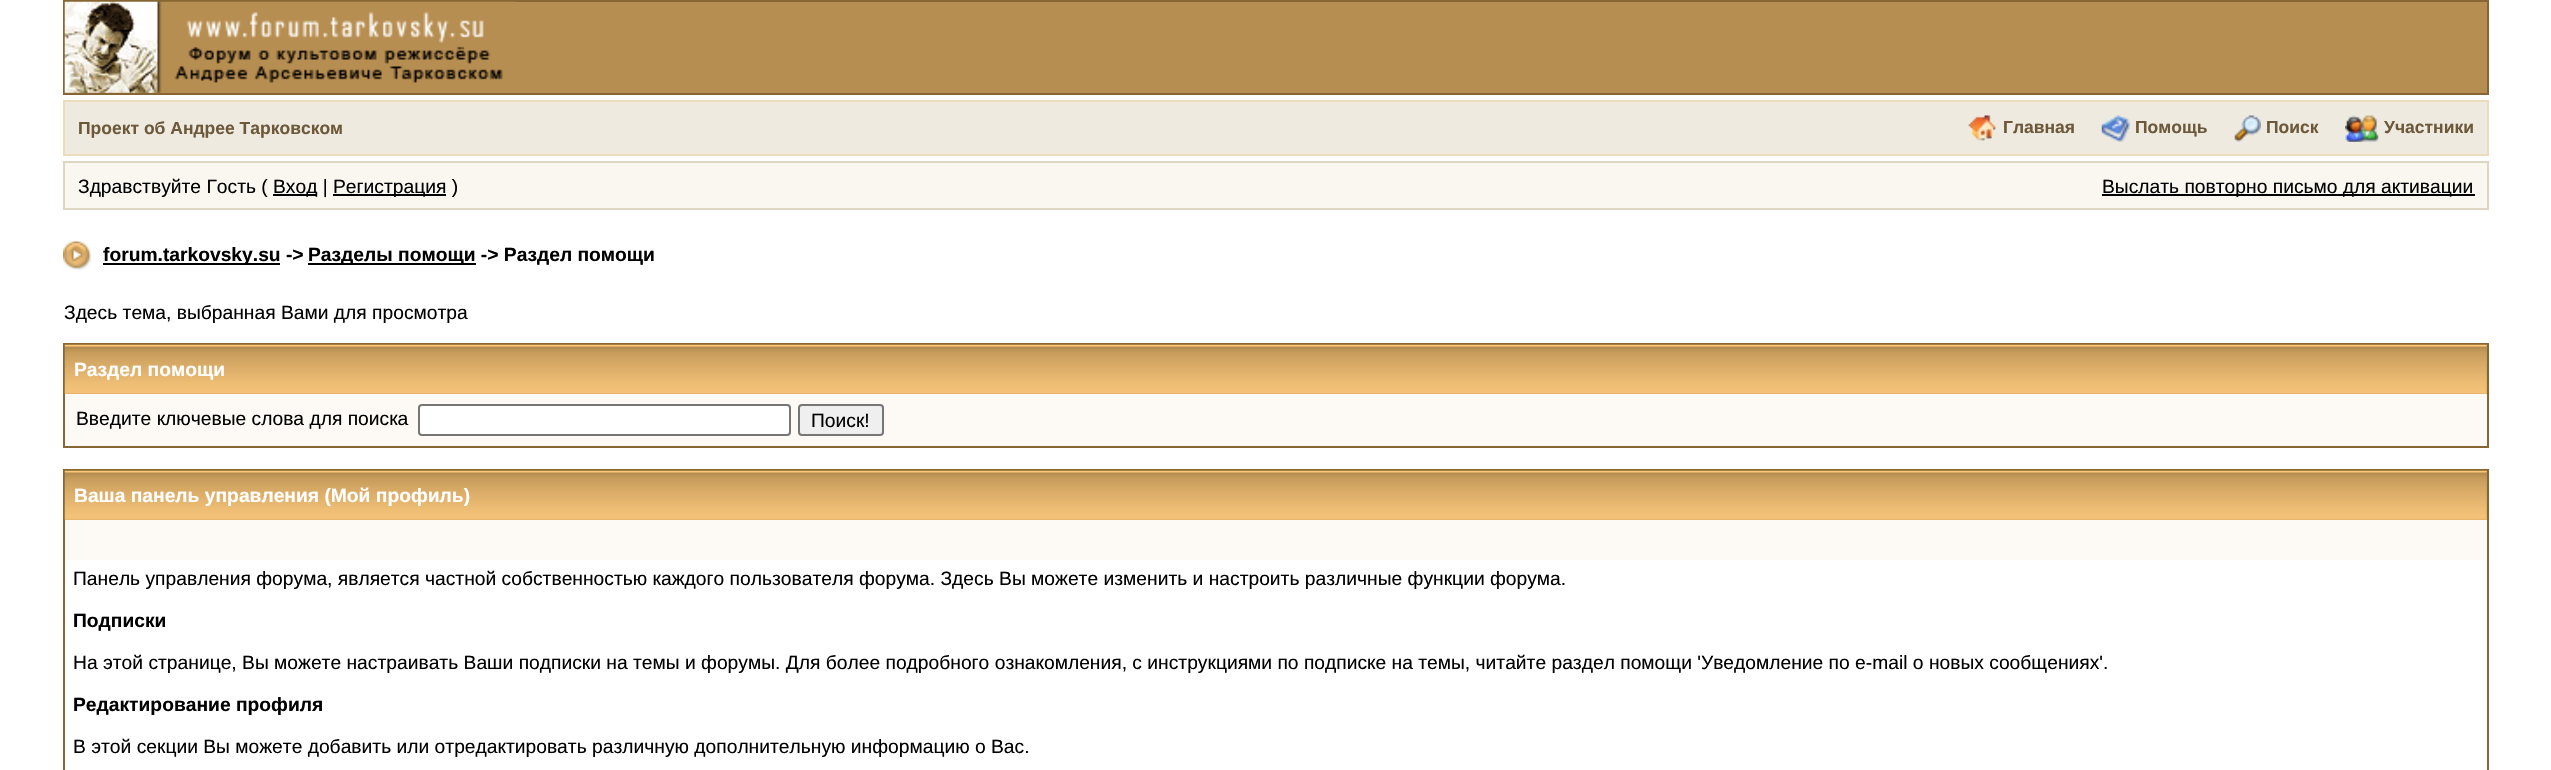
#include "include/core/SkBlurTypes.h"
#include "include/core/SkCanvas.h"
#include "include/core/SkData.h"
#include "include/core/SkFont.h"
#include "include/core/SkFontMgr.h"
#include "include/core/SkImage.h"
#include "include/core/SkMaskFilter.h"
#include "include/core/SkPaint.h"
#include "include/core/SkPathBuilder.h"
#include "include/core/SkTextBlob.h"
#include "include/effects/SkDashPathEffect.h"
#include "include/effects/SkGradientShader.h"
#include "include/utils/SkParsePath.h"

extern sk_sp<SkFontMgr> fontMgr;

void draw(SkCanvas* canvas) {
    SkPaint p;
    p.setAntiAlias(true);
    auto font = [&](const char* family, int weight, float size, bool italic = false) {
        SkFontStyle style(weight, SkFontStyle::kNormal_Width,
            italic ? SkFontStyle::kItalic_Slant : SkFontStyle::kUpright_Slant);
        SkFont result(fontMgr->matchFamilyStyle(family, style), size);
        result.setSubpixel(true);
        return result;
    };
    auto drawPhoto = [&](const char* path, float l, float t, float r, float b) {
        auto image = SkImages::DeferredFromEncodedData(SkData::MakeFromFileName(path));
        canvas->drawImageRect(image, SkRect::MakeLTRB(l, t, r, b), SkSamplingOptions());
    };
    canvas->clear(0xFFFFFFFF);
    p.setColor(0xFFB78E51);
    canvas->drawRect(SkRect::MakeLTRB(64, 1, 2488, 94), p);
    p.setStyle(SkPaint::kStroke_Style);
    p.setStrokeWidth(2);
    p.setColor(0xFF876634);
    canvas->drawRect(SkRect::MakeLTRB(64, 1, 2488, 94), p);
    drawPhoto("media/1.png", 64, 1, 516, 93);
    p.setStyle(SkPaint::kFill_Style);
    p.setColor(0xFFEFEADF);
    canvas->drawRect(SkRect::MakeLTRB(64, 101, 2488, 155), p);
    p.setStyle(SkPaint::kStroke_Style);
    p.setColor(0xFFEDDDBC);
    canvas->drawRect(SkRect::MakeLTRB(64, 101, 2488, 155), p);
    auto font1 = font("Liberation Sans", 700, 17.5f);
    p.setStyle(SkPaint::kFill_Style);
    p.setColor(0xFF6C583A);
    canvas->drawString("Проект об Андрее Тарковском", 78, 134, font1, p);
    drawPhoto("media/2.png", 1968, 115, 1996, 141);
    canvas->drawString("Главная", 2003, 133, font1, p);
    drawPhoto("media/3.png", 2101, 115, 2130, 142);
    canvas->drawString("Помощь", 2135, 133, font1, p);
    drawPhoto("media/4.png", 2234, 115, 2261, 142);
    canvas->drawString("Поиск", 2266, 133, font1, p);
    drawPhoto("media/5.png", 2345, 115, 2379, 142);
    canvas->drawString("Участники", 2384, 133, font1, p);
    p.setColor(0xFFFAF7F0);
    canvas->drawRect(SkRect::MakeLTRB(64, 162, 2488, 209), p);
    p.setStyle(SkPaint::kStroke_Style);
    p.setColor(0xFFDFD6C2);
    canvas->drawRect(SkRect::MakeLTRB(64, 162, 2488, 209), p);
    auto font2 = font("Liberation Sans", 400, 19.25f);
    p.setStyle(SkPaint::kFill_Style);
    p.setColor(0xFF000000);
    canvas->drawString("Здравствуйте Гость (", 78, 193, font2, p);
    canvas->drawRect(SkRect::MakeLTRB(273, 194, 317, 196), p);
    canvas->drawString("Вход |", 273, 193, font2, p);
    canvas->drawRect(SkRect::MakeLTRB(333, 194, 446, 196), p);
    canvas->drawString("Регистрация )", 333, 193, font2, p);
    canvas->drawRect(SkRect::MakeLTRB(2102, 194, 2475, 196), p);
    canvas->drawString("Выслать повторно письмо для активации", 2102, 193, font2, p);
    drawPhoto("media/6.png", 63, 241, 91, 270);
    canvas->drawRect(SkRect::MakeLTRB(103, 263, 280, 265), p);
    auto font3 = font("Liberation Sans", 700, 19.25f);
    canvas->drawString("forum.tarkovsky.su ->", 103, 261, font3, p);
    canvas->drawRect(SkRect::MakeLTRB(308, 263, 476, 265), p);
    canvas->drawString("Разделы помощи -> Раздел помощи", 308, 261, font3, p);
    canvas->drawString("Здесь тема, выбранная Вами для просмотра", 64, 319, font2, p);
    p.setStyle(SkPaint::kStroke_Style);
    p.setColor(0xFF876634);
    canvas->drawRect(SkRect::MakeLTRB(64, 344, 2488, 447), p);
    p.setStyle(SkPaint::kFill_Style);
    p.setColor(0xFFB78E51);
    canvas->drawRect(SkRect::MakeLTRB(65, 345, 2487, 394), p);
    drawPhoto("media/7.png", 64, 344, 2487, 394);
    p.setColor(0xFFFFFFFF);
    canvas->drawString("Раздел помощи", 74, 376, font3, p);
    p.setColor(0xFFFDFAF5);
    canvas->drawRect(SkRect::MakeLTRB(65, 394, 2487, 446), p);
    p.setColor(0xFF000000);
    canvas->drawString("Введите ключевые слова для поиска", 76, 425, font2, p);
    p.setColor(0xFFFFFFFF);
    canvas->drawRoundRect(SkRect::MakeLTRB(419, 405, 790, 435), 3, 3, p);
    p.setStyle(SkPaint::kStroke_Style);
    p.setColor(0xFF767676);
    canvas->drawRoundRect(SkRect::MakeLTRB(419, 405, 790, 435), 3, 3, p);
    p.setStyle(SkPaint::kFill_Style);
    p.setColor(0xFFEFEFEF);
    canvas->drawRoundRect(SkRect::MakeLTRB(799, 405, 883, 435), 3, 3, p);
    p.setStyle(SkPaint::kStroke_Style);
    p.setColor(0xFF767676);
    canvas->drawRoundRect(SkRect::MakeLTRB(799, 405, 883, 435), 3, 3, p);
    p.setStyle(SkPaint::kFill_Style);
    p.setColor(0xFF000000);
    canvas->drawString("Поиск!", 811, 427, font2, p);
    p.setStyle(SkPaint::kStroke_Style);
    p.setColor(0xFF876634);
    canvas->drawRect(SkRect::MakeLTRB(64, 470, 2488, 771), p);
    p.setStyle(SkPaint::kFill_Style);
    p.setColor(0xFFB78E51);
    canvas->drawRect(SkRect::MakeLTRB(65, 471, 2487, 520), p);
    drawPhoto("media/7.png", 64, 470, 2487, 520);
    p.setColor(0xFFFFFFFF);
    canvas->drawString("Ваша панель управления (Мой профиль)", 74, 502, font3, p);
    p.setColor(0xFFFDFAF5);
    canvas->drawRect(SkRect::MakeLTRB(65, 520, 2487, 560), p);
    p.setColor(0xFF000000);
    canvas->drawString("Панель управления форума, является частной собственностью каждого пользователя форума. Здесь Вы можете изменить и настроить различные функции форума.", 73, 585, font2, p);
    canvas->drawString("Подписки", 73, 627, font3, p);
    canvas->drawString("На этой странице, Вы можете настраивать Ваши подписки на темы и форумы. Для более подробного ознакомления, с инструкциями по подписке на темы, читайте раздел помощи 'Уведомление по e-mail о новых сообщениях'.", 73, 669, font2, p);
    canvas->drawString("Редактирование профиля", 73, 711, font3, p);
    canvas->drawString("В этой секции Вы можете добавить или отредактировать различную дополнительную информацию о Вас.", 73, 753, font2, p);
}
